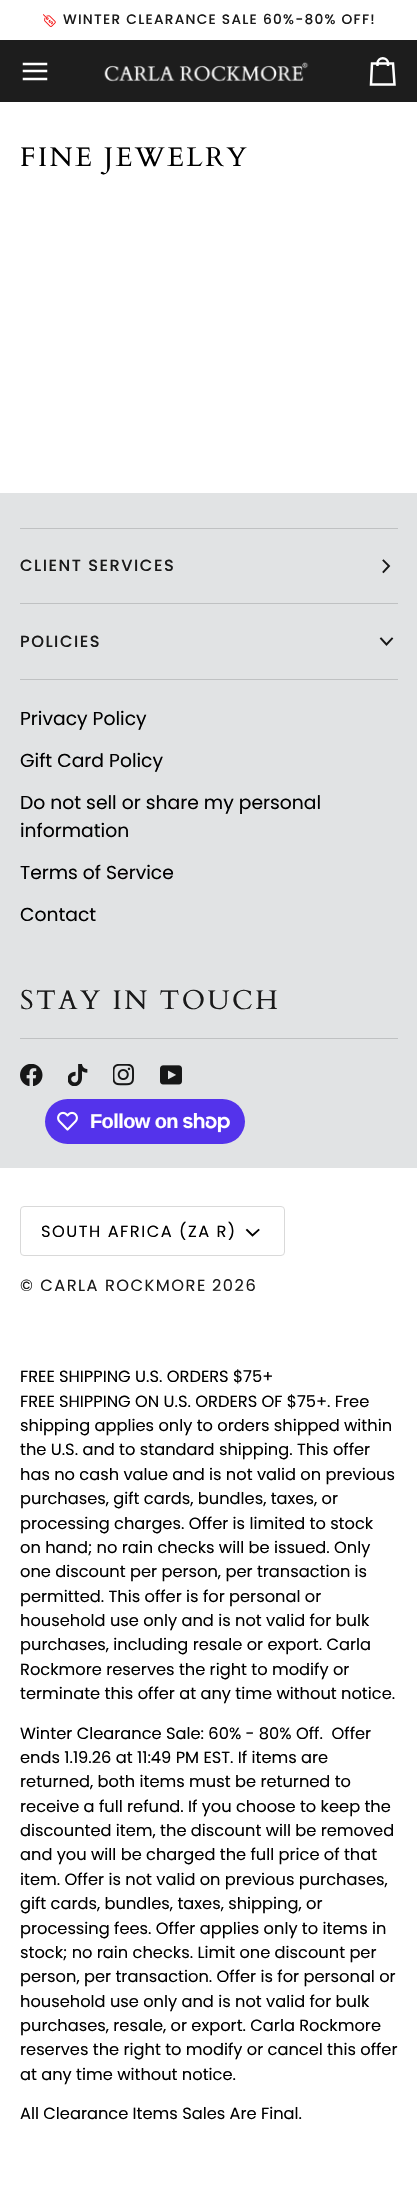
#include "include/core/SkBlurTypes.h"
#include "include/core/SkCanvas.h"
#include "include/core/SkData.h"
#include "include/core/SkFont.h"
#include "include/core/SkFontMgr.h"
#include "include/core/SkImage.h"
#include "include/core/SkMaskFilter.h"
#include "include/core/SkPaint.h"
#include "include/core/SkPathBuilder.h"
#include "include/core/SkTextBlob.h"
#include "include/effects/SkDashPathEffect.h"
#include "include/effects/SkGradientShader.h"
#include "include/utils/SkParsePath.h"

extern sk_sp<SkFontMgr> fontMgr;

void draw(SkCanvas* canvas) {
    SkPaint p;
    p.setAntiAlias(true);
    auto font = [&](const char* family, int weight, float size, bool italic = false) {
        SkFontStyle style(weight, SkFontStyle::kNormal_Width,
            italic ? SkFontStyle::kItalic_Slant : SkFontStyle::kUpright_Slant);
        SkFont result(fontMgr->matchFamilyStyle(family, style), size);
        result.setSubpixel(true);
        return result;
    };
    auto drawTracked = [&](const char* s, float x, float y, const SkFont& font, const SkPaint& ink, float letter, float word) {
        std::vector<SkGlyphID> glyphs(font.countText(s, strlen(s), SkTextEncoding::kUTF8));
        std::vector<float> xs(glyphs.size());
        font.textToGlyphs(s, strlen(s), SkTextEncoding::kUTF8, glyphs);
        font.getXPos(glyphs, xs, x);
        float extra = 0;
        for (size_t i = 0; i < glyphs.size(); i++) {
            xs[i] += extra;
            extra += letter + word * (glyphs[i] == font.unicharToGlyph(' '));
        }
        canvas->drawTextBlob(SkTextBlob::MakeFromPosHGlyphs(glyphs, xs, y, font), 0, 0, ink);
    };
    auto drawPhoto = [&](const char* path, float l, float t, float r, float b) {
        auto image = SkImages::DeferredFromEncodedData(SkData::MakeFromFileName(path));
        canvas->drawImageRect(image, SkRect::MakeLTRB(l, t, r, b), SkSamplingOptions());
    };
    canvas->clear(0xFFFFFFFF);
    drawPhoto("media/1.png", 43, 14, 56, 27);
    auto font1 = font("Poppins", 500, 13.75f);
    p.setColor(0xFF1A1A1A);
    drawTracked("WINTER CLEARANCE SALE 60%-80% OFF!", 63, 24, font1, p, 1.25f, 0);
    p.setColor(0xFF1D1D1D);
    canvas->drawRect(SkRect::MakeLTRB(0, 40, 417, 102), p);
    p.setStyle(SkPaint::kStroke_Style);
    p.setStrokeWidth(2.5f);
    p.setStrokeCap(SkPaint::kSquare_Cap);
    p.setColor(0xFFFFFFFF);
    canvas->drawPath(SkPathBuilder().moveTo(46, 64).lineTo(24, 64).moveTo(46, 71).lineTo(24, 71).moveTo(46, 79).lineTo(24, 79).detach(), p);
    drawPhoto("media/2.png", 104, 62, 309, 82);
    p.setStrokeCap(SkPaint::kButt_Cap);
    canvas->drawPath(SkPathBuilder().moveTo(388, 66).lineTo(388, 63.5f).lineTo(393, 63.5f).lineTo(394.5f, 84.5f).lineTo(371, 84.5f).lineTo(372, 63.5f).lineTo(377.5f, 63.5f).cubicTo(377.5f, 56.5f, 388, 56.5f, 388, 63.5f).lineTo(377.5f, 63.5f).lineTo(377.5f, 66).detach(), p);
    auto font2 = font("Cardo", 400, 27);
    p.setStyle(SkPaint::kFill_Style);
    p.setColor(0xFF000000);
    drawTracked("FINE JEWELRY", 20, 166, font2, p, 2.5f, 0);
    {
        const struct { float l, t, r, b; SkColor color; } items[] = {
            {0, 493, 417, 1168, 0xFFE1E3E4},
            {20, 528, 398, 529, 0xFFBFC1C2},
            {20, 603, 398, 604, 0xFFBFC1C2},
        };
        for (auto [l, t, r, b, color] : items) {
            p.setColor(color);
            canvas->drawRect(SkRect::MakeLTRB(l, t, r, b), p);
        }
    }
    auto font3 = font("Poppins", 500, 16.25f);
    p.setColor(0xFF1A1A1A);
    drawTracked("CLIENT SERVICES", 20, 571, font3, p, 1.5f, 0);
    p.setStyle(SkPaint::kStroke_Style);
    p.setStrokeWidth(1.9f);
    p.setStrokeCap(SkPaint::kSquare_Cap);
    p.setColor(0xFF171717);
    canvas->drawPath(SkPathBuilder().moveTo(383.5f, 572).lineTo(389, 566).lineTo(383.5f, 560.5f).detach(), p);
    p.setStyle(SkPaint::kFill_Style);
    p.setColor(0xFFBFC1C2);
    canvas->drawRect(SkRect::MakeLTRB(20, 679, 398, 680), p);
    p.setColor(0xFF1A1A1A);
    drawTracked("POLICIES", 20, 647, font3, p, 1.5f, 0);
    p.setStyle(SkPaint::kStroke_Style);
    p.setColor(0xFF171717);
    canvas->drawPath(SkPathBuilder().moveTo(381, 638.5f).lineTo(386.5f, 644.5f).lineTo(392, 638.5f).detach(), p);
    auto font4 = font("Poppins", 400, 18.75f);
    p.setStyle(SkPaint::kFill_Style);
    p.setColor(0xFF000000);
    {
        const struct { const char* s; float x, y; } items[] = {
            {"Privacy Policy", 20, 725},
            {"Gift Card Policy", 20, 767},
            {"Do not sell or share my personal", 20, 809},
            {"information", 20, 837},
            {"Terms of Service", 20, 879},
            {"Contact", 20, 921},
        };
        for (auto [s, x, y] : items) {
            canvas->drawString(s, x, y, font4, p);
        }
    }
    p.setColor(0xFF1A1A1A);
    drawTracked("STAY IN TOUCH", 20, 1009, font2, p, 2.5f, 0);
    p.setColor(0xFFBFC1C2);
    canvas->drawRect(SkRect::MakeLTRB(20, 1038, 398, 1039), p);
    drawPhoto("media/3.png", 20, 1064, 43, 1086);
    drawPhoto("media/4.png", 68, 1064, 88, 1086);
    drawPhoto("media/5.png", 113, 1064, 134, 1086);
    drawPhoto("media/6.png", 160, 1065, 182, 1085);
    p.setColor(0xFF5433EB);
    canvas->drawRoundRect(SkRect::MakeLTRB(45, 1099, 245, 1144), 22.5f, 22.5f, p);
    drawPhoto("media/7.png", 57, 1111, 78, 1131);
    auto font5 = font("Liberation Sans", 700, 20);
    p.setColor(0xFFFFFFFF);
    drawTracked("Follow on", 90, 1128, font5, p, -0.6f, 0);
    drawPhoto("media/8.png", 183, 1113, 230, 1133);
    p.setStyle(SkPaint::kStroke_Style);
    p.setStrokeWidth(1);
    p.setStrokeCap(SkPaint::kButt_Cap);
    p.setColor(0xFFD9D9D9);
    canvas->drawRoundRect(SkRect::MakeLTRB(20.5f, 1206.5f, 284.5f, 1255.5f), 3.5f, 3.5f, p);
    auto font6 = font("Poppins", 400, 16.25f);
    p.setStyle(SkPaint::kFill_Style);
    p.setColor(0xFF000000);
    drawTracked("SOUTH AFRICA (ZA R)", 41, 1237, font6, p, 1.5f, 0);
    p.setStyle(SkPaint::kStroke_Style);
    p.setStrokeWidth(1.9f);
    p.setStrokeCap(SkPaint::kSquare_Cap);
    canvas->drawPath(SkPathBuilder().moveTo(247, 1230).lineTo(252.5f, 1235.5f).lineTo(258.5f, 1230).detach(), p);
    p.setStyle(SkPaint::kFill_Style);
    p.setColor(0xFF1A1A1A);
    drawTracked("© CARLA ROCKMORE", 20, 1291, font6, p, 1.5f, 0);
    drawTracked("2026", 212, 1291, font6, p, 1.5f, 0);
    p.setColor(0xFF000000);
    {
        const struct { const char* s; float x, y; } items[] = {
            {"FREE SHIPPING U.S. ORDERS $75+", 20, 1382},
            {"FREE SHIPPING ON U.S. ORDERS OF $75+. Free", 20, 1407},
            {"shipping applies only to orders shipped within", 20, 1431},
            {"the U.S. and to standard shipping. This offer", 20, 1455},
            {"has no cash value and is not valid on previous", 20, 1480},
            {"purchases, gift cards, bundles, taxes, or", 20, 1504},
            {"processing charges. Offer is limited to stock", 20, 1529},
            {"on hand; no rain checks will be issued. Only", 20, 1553},
            {"one discount per person, per transaction is", 20, 1577},
            {"permitted. This offer is for personal or", 20, 1602},
            {"household use only and is not valid for bulk", 20, 1626},
            {"purchases, including resale or export. Carla", 20, 1650},
            {"Rockmore reserves the right to modify or", 20, 1675},
            {"terminate this offer at any time without notice.", 20, 1699},
            {"Winter Clearance Sale: 60% - 80% Off.  Offer", 20, 1739},
            {"ends 1.19.26 at 11:49 PM EST. If items are", 20, 1763},
            {"returned, both items must be returned to", 20, 1787},
            {"receive a full refund. If you choose to keep the", 20, 1812},
            {"discounted item, the discount will be removed", 20, 1836},
            {"and you will be charged the full price of that", 20, 1860},
            {"item. Offer is not valid on previous purchases,", 20, 1885},
            {"gift cards, bundles, taxes, shipping, or", 20, 1909},
            {"processing fees. Offer applies only to items in", 20, 1934},
            {"stock; no rain checks. Limit one discount per", 20, 1958},
            {"person, per transaction. Offer is for personal or", 20, 1982},
            {"household use only and is not valid for bulk", 20, 2007},
            {"purchases, resale, or export. Carla Rockmore", 20, 2031},
            {"reserves the right to modify or cancel this offer", 20, 2055},
            {"at any time without notice.", 20, 2080},
            {"All Clearance Items Sales Are Final.", 20, 2119},
        };
        for (auto [s, x, y] : items) {
            canvas->drawString(s, x, y, font6, p);
        }
    }
}
